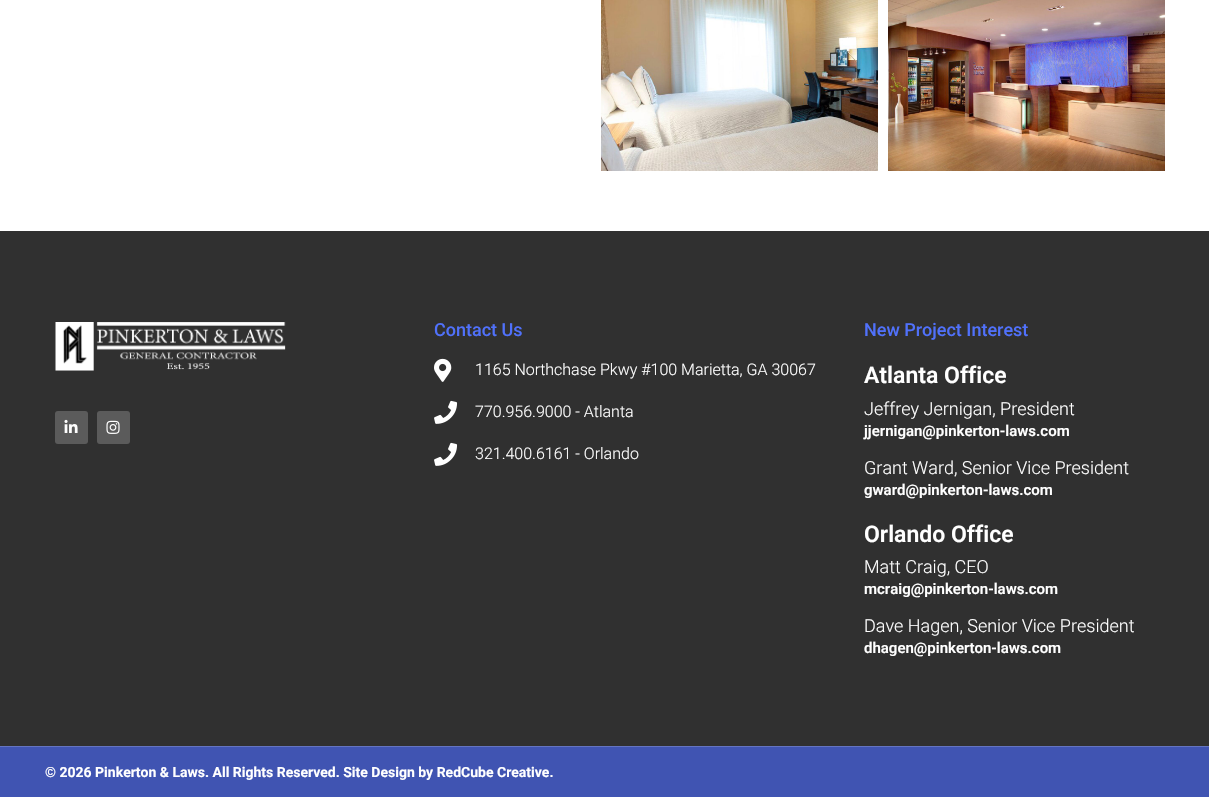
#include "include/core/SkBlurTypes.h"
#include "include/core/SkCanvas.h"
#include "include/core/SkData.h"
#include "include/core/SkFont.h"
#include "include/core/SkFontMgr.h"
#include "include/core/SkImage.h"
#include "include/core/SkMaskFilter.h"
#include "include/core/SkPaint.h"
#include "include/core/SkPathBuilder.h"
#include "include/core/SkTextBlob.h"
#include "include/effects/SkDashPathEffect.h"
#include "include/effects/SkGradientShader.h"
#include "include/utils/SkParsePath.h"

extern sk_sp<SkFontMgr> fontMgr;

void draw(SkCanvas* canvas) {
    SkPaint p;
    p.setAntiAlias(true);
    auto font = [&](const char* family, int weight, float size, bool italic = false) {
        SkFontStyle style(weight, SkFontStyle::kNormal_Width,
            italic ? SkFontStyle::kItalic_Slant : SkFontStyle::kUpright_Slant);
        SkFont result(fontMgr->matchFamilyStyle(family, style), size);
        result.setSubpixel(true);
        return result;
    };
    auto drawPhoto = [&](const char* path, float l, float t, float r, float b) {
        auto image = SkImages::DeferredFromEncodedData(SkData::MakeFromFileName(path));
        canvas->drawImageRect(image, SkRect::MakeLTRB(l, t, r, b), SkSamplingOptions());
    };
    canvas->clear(0xFFFFFFFF);
    drawPhoto("media/1.png", 601, 0, 878, 171);
    drawPhoto("media/2.png", 888, 0, 1165, 171);
    p.setColor(0xFF303030);
    canvas->drawRect(SkRect::MakeLTRB(0, 231, 1209, 746), p);
    drawPhoto("media/3.png", 55, 322, 286, 371);
    p.setColor(0xFF5B5B5B);
    canvas->drawRoundRect(SkRect::MakeLTRB(55, 411, 88, 444), 3, 3, p);
    drawPhoto("media/4.png", 64, 419, 78, 433);
    canvas->drawRoundRect(SkRect::MakeLTRB(97, 411, 130, 444), 3, 3, p);
    drawPhoto("media/5.png", 106, 420, 120, 434);
    auto font1 = font("Roboto", 500, 18);
    p.setColor(0xFF5071FB);
    canvas->drawString("Contact Us", 434, 336, font1, p);
    drawPhoto("media/6.png", 434, 358, 452, 382);
    auto font2 = font("Roboto", 300, 16);
    p.setColor(0xFFFFFFFF);
    canvas->drawString("1165 Northchase Pkwy #100 Marietta, GA 30067", 475, 375, font2, p);
    drawPhoto("media/7.png", 434, 400, 458, 424);
    canvas->drawString("770.956.9000 - Atlanta", 475, 417, font2, p);
    drawPhoto("media/7.png", 434, 442, 458, 466);
    canvas->drawString("321.400.6161 - Orlando", 475, 459, font2, p);
    p.setColor(0xFF5071FB);
    canvas->drawString("New Project Interest", 864, 336, font1, p);
    auto font3 = font("Roboto", 600, 23);
    p.setColor(0xFFFFFFFF);
    canvas->drawString("Atlanta Office", 864, 383, font3, p);
    auto font4 = font("Roboto", 300, 18);
    canvas->drawString("Jeffrey Jernigan, President", 864, 415, font4, p);
    auto font5 = font("Roboto", 600, 15);
    canvas->drawString("jjernigan@pinkerton-laws.com", 864, 436, font5, p);
    canvas->drawString("Grant Ward, Senior Vice President", 864, 474, font4, p);
    canvas->drawString("gward@pinkerton-laws.com", 864, 495, font5, p);
    canvas->drawString("Orlando Office", 864, 542, font3, p);
    canvas->drawString("Matt Craig, CEO", 864, 573, font4, p);
    canvas->drawString("mcraig@pinkerton-laws.com", 864, 594, font5, p);
    canvas->drawString("Dave Hagen, Senior Vice President", 864, 632, font4, p);
    canvas->drawString("dhagen@pinkerton-laws.com", 864, 653, font5, p);
    p.setColor(0xFF4054B2);
    canvas->drawRect(SkRect::MakeLTRB(0, 747, 1209, 797), p);
    p.setColor(0xFF6474C1);
    canvas->drawRect(SkRect::MakeLTRB(0, 746, 1209, 747), p);
    auto font6 = font("Roboto", 700, 14);
    p.setColor(0xFFFFFFFF);
    canvas->drawString("© 2026 Pinkerton & Laws. All Rights Reserved. Site Design by RedCube Creative.", 45, 777, font6, p);
}
